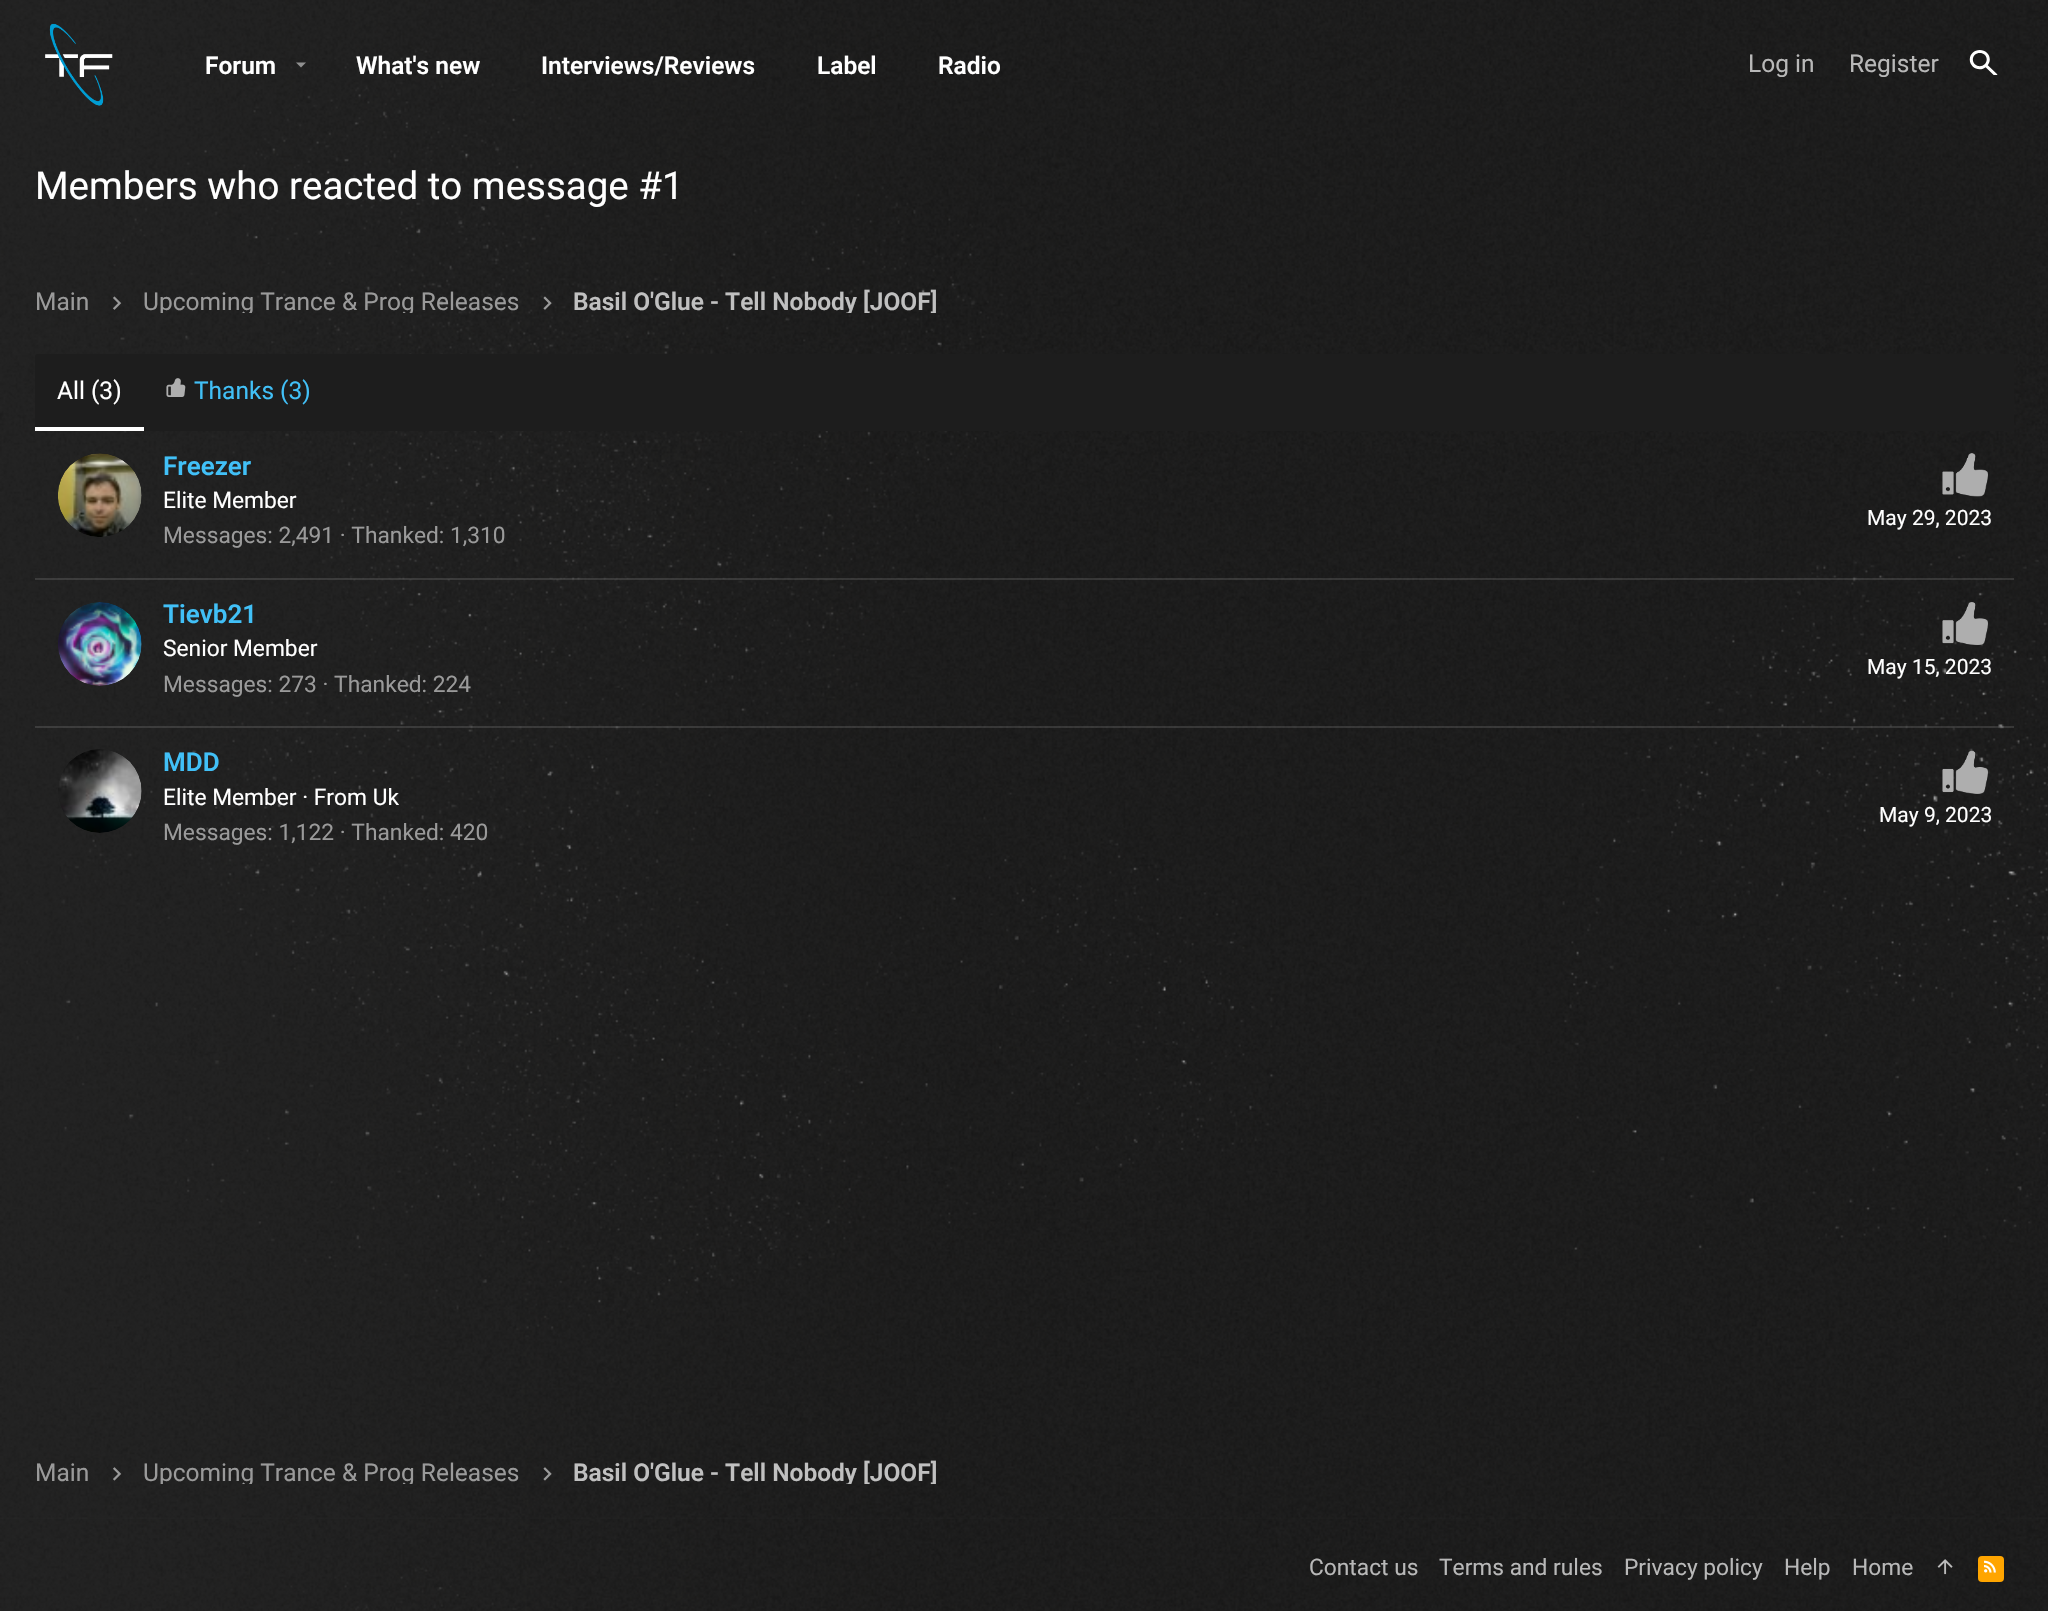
#include "include/core/SkBlurTypes.h"
#include "include/core/SkCanvas.h"
#include "include/core/SkData.h"
#include "include/core/SkFont.h"
#include "include/core/SkFontMgr.h"
#include "include/core/SkImage.h"
#include "include/core/SkMaskFilter.h"
#include "include/core/SkPaint.h"
#include "include/core/SkPathBuilder.h"
#include "include/core/SkTextBlob.h"
#include "include/effects/SkDashPathEffect.h"
#include "include/effects/SkGradientShader.h"
#include "include/utils/SkParsePath.h"

extern sk_sp<SkFontMgr> fontMgr;

void draw(SkCanvas* canvas) {
    SkPaint p;
    p.setAntiAlias(true);
    auto font = [&](const char* family, int weight, float size, bool italic = false) {
        SkFontStyle style(weight, SkFontStyle::kNormal_Width,
            italic ? SkFontStyle::kItalic_Slant : SkFontStyle::kUpright_Slant);
        SkFont result(fontMgr->matchFamilyStyle(family, style), size);
        result.setSubpixel(true);
        return result;
    };
    auto drawPhoto = [&](const char* path, float l, float t, float r, float b) {
        auto image = SkImages::DeferredFromEncodedData(SkData::MakeFromFileName(path));
        canvas->drawImageRect(image, SkRect::MakeLTRB(l, t, r, b), SkSamplingOptions());
    };
    canvas->clear(0xFFFFFFFF);
    drawPhoto("media/1.png", 0, 0, 2048, 1611);
    drawPhoto("media/2.png", 45, 23, 113, 106);
    auto font1 = font("Roboto", 600, 24.5f);
    p.setColor(0xFFFFFFFF);
    canvas->drawString("Forum", 205, 74, font1, p);
    p.setColor(0x80FFFFFF);
    canvas->drawPath(SkPathBuilder().moveTo(296, 62.5f).lineTo(301, 67.5f).lineTo(306, 62.5f).close().detach(), p);
    p.setColor(0xFFFFFFFF);
    {
        const struct { const char* s; float x, y; } items[] = {
            {"What's new", 356, 74},
            {"Interviews/Reviews", 541, 74},
            {"Label", 817, 74},
            {"Radio", 938, 74},
        };
        for (auto [s, x, y] : items) {
            canvas->drawString(s, x, y, font1, p);
        }
    }
    auto font2 = font("Roboto", 400, 24.5f);
    p.setColor(0xFFB8B8B8);
    canvas->drawString("Log in", 1748, 72, font2, p);
    canvas->drawString("Register", 1849, 72, font2, p);
    drawPhoto("media/3.png", 1969, 50, 1998, 75);
    auto font3 = font("Roboto", 400, 38.5f);
    p.setColor(0xFFFFFFFF);
    canvas->drawString("Members who reacted to message #1", 35, 199, font3, p);
    p.setColor(0xFF9A9A9A);
    canvas->drawString("Main", 35, 310, font2, p);
    drawPhoto("media/4.png", 113, 296, 122, 310);
    canvas->save();
    canvas->clipRect(SkRect::MakeLTRB(144, 289, 520, 313));
    canvas->drawString("Upcoming Trance & Prog Releases", 143, 310, font2, p);
    canvas->restore();
    drawPhoto("media/5.png", 543, 296, 552, 310);
    canvas->save();
    canvas->clipRect(SkRect::MakeLTRB(574, 289, 938, 313));
    p.setColor(0xFFC0C0C0);
    canvas->drawString("Basil O'Glue - Tell Nobody [JOOF]", 573, 310, font1, p);
    canvas->restore();
    p.setColor(0xFF1D1D1D);
    canvas->drawPath(SkPathBuilder().moveTo(37, 354).lineTo(2012, 354).cubicTo(2013, 354, 2014, 355, 2014, 356).lineTo(2014, 431).lineTo(35, 431).lineTo(35, 356).cubicTo(35, 355, 36, 354, 37, 354).close().detach(), p);
    p.setColor(0xFFFFFFFF);
    canvas->drawRect(SkRect::MakeLTRB(35, 427, 144, 431), p);
    canvas->drawString("All (3)", 57, 399, font2, p);
    drawPhoto("media/6.png", 166, 378, 186, 397);
    p.setColor(0xFF41C0F7);
    canvas->drawString("Thanks (3)", 194, 399, font2, p);
    p.setColor(0xFF1D1D1D);
    canvas->drawCircle(100, 495, 42, p);
    drawPhoto("media/7.png", 58, 453, 142, 537);
    auto font4 = font("Roboto", 600, 26);
    p.setColor(0xFF41C0F7);
    canvas->drawString("Freezer", 163, 475, font4, p);
    auto font5 = font("Roboto", 400, 22.75f);
    p.setColor(0xFFFFFFFF);
    canvas->drawString("Elite Member", 163, 508, font5, p);
    drawPhoto("media/8.png", 1942, 453, 1988, 497);
    auto font6 = font("Roboto", 400, 21);
    canvas->drawString("May 29, 2023", 1867, 525, font6, p);
    p.setColor(0xFF9A9A9A);
    canvas->drawString("Messages: 2,491 · Thanked: 1,310", 163, 543, font5, p);
    p.setColor(0x1FFFFFFF);
    canvas->drawRect(SkRect::MakeLTRB(35, 578, 2014, 580), p);
    p.setColor(0xFF1D1D1D);
    canvas->drawCircle(100, 644, 42, p);
    drawPhoto("media/9.png", 58, 602, 142, 686);
    p.setColor(0xFF41C0F7);
    canvas->drawString("Tievb21", 163, 623, font4, p);
    p.setColor(0xFFFFFFFF);
    canvas->drawString("Senior Member", 163, 656, font5, p);
    drawPhoto("media/10.png", 1942, 602, 1988, 645);
    canvas->drawString("May 15, 2023", 1867, 674, font6, p);
    p.setColor(0xFF9A9A9A);
    canvas->drawString("Messages: 273 · Thanked: 224", 163, 692, font5, p);
    p.setColor(0x1FFFFFFF);
    canvas->drawRect(SkRect::MakeLTRB(35, 726, 2014, 728), p);
    p.setColor(0xFF1D1D1D);
    canvas->drawCircle(100, 791, 42, p);
    drawPhoto("media/11.png", 58, 749, 142, 833);
    p.setColor(0xFF41C0F7);
    canvas->drawString("MDD", 163, 771, font4, p);
    p.setColor(0xFFFFFFFF);
    canvas->drawString("Elite Member · From Uk", 163, 805, font5, p);
    drawPhoto("media/12.png", 1942, 750, 1988, 794);
    canvas->drawString("May 9, 2023", 1879, 822, font6, p);
    p.setColor(0xFF9A9A9A);
    canvas->drawString("Messages: 1,122 · Thanked: 420", 163, 840, font5, p);
    canvas->drawString("Main", 35, 1481, font2, p);
    drawPhoto("media/13.png", 113, 1467, 122, 1481);
    canvas->save();
    canvas->clipRect(SkRect::MakeLTRB(144, 1460, 520, 1484));
    canvas->drawString("Upcoming Trance & Prog Releases", 143, 1481, font2, p);
    canvas->restore();
    drawPhoto("media/14.png", 543, 1467, 552, 1481);
    canvas->save();
    canvas->clipRect(SkRect::MakeLTRB(574, 1460, 938, 1484));
    p.setColor(0xFFC0C0C0);
    canvas->drawString("Basil O'Glue - Tell Nobody [JOOF]", 573, 1481, font1, p);
    canvas->restore();
    p.setColor(0xFFB8B8B8);
    {
        const struct { const char* s; float x, y; } items[] = {
            {"Contact us", 1309, 1575},
            {"Terms and rules", 1439, 1575},
            {"Privacy policy", 1624, 1575},
            {"Help", 1784, 1575},
            {"Home", 1852, 1575},
        };
        for (auto [s, x, y] : items) {
            canvas->drawString(s, x, y, font5, p);
        }
    }
    drawPhoto("media/15.png", 1937, 1559, 1953, 1575);
    p.setColor(0xFFFFA500);
    canvas->drawRoundRect(SkRect::MakeLTRB(1978, 1556, 2004, 1582), 4, 4, p);
    drawPhoto("media/16.png", 1984, 1560, 1996, 1573);
}
